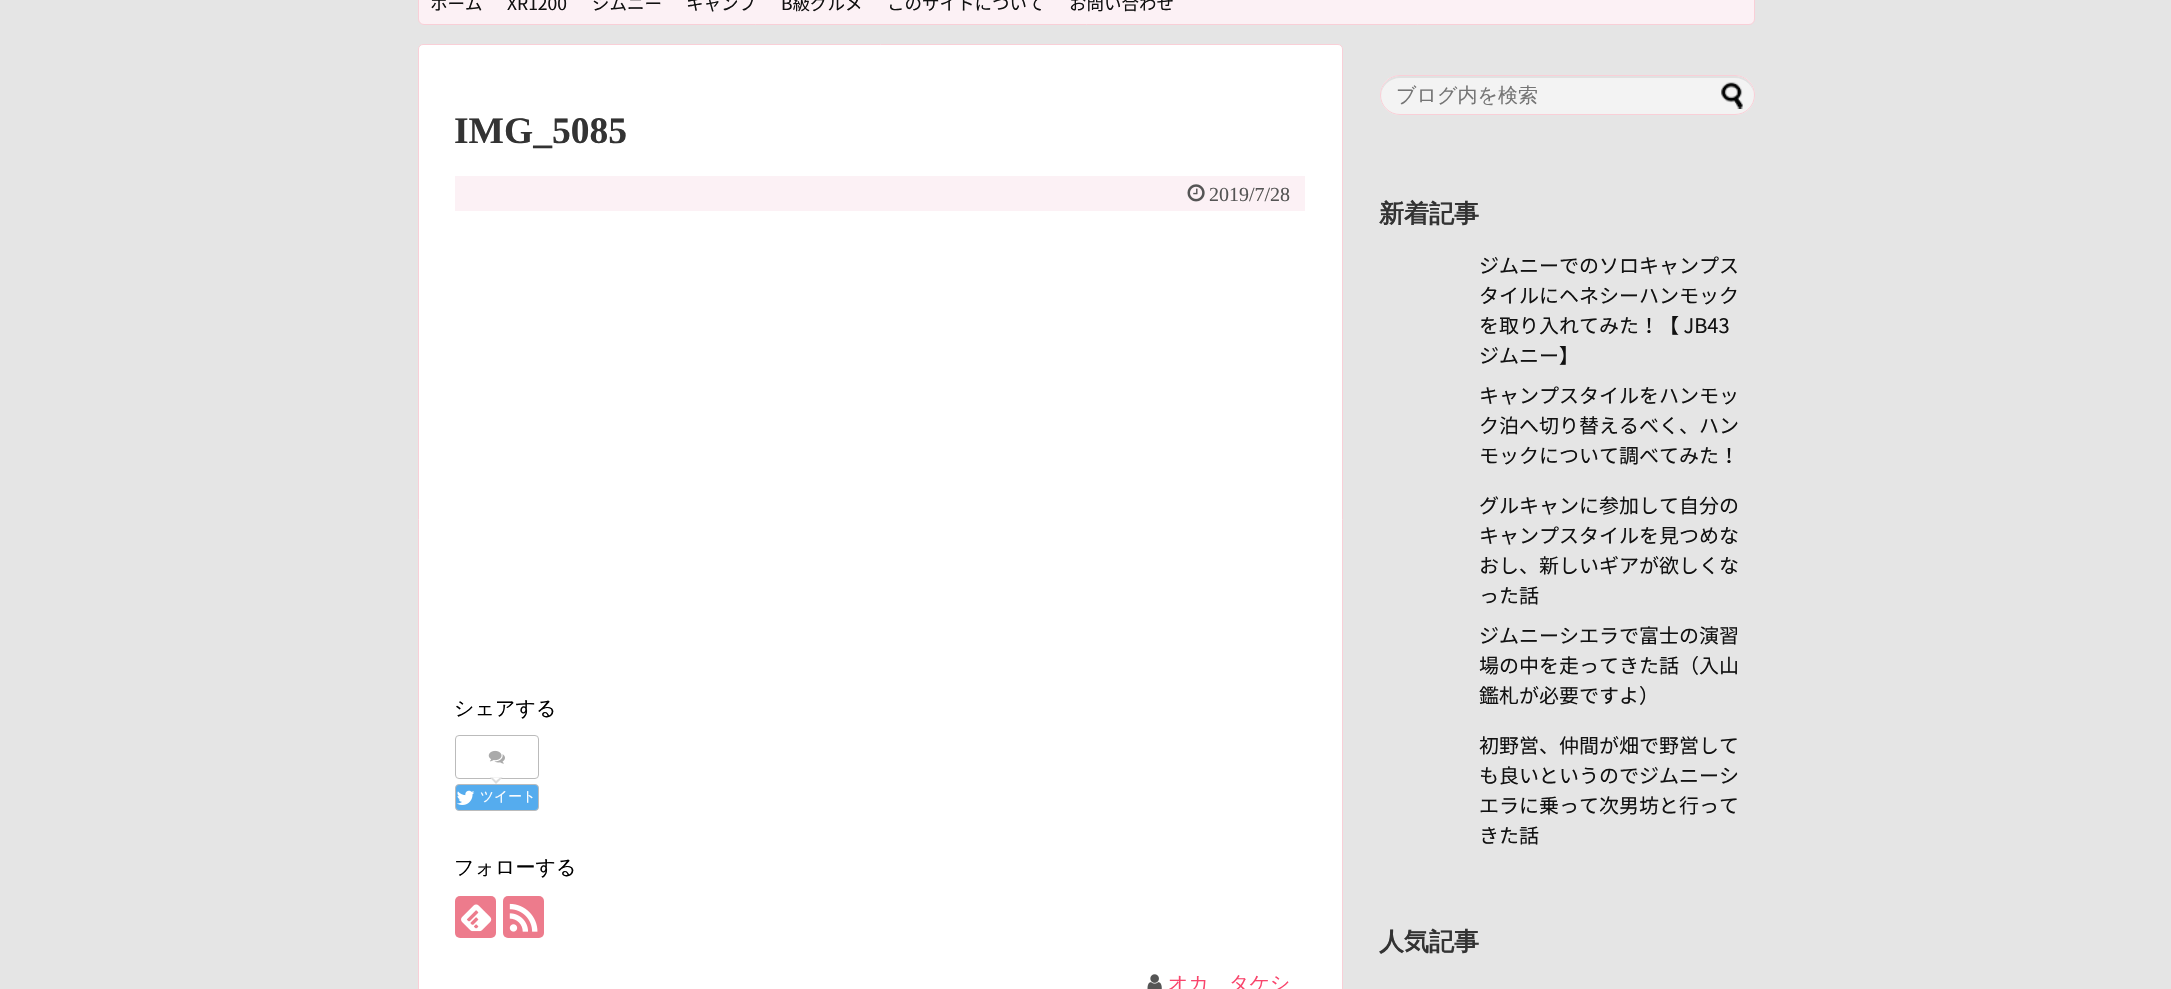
#include "include/core/SkBlurTypes.h"
#include "include/core/SkCanvas.h"
#include "include/core/SkData.h"
#include "include/core/SkFont.h"
#include "include/core/SkFontMgr.h"
#include "include/core/SkImage.h"
#include "include/core/SkMaskFilter.h"
#include "include/core/SkPaint.h"
#include "include/core/SkPathBuilder.h"
#include "include/core/SkTextBlob.h"
#include "include/effects/SkDashPathEffect.h"
#include "include/effects/SkGradientShader.h"
#include "include/utils/SkParsePath.h"

extern sk_sp<SkFontMgr> fontMgr;

void draw(SkCanvas* canvas) {
    SkPaint p;
    p.setAntiAlias(true);
    auto font = [&](const char* family, int weight, float size, bool italic = false) {
        SkFontStyle style(weight, SkFontStyle::kNormal_Width,
            italic ? SkFontStyle::kItalic_Slant : SkFontStyle::kUpright_Slant);
        SkFont result(fontMgr->matchFamilyStyle(family, style), size);
        result.setSubpixel(true);
        return result;
    };
    auto drawPhoto = [&](const char* path, float l, float t, float r, float b) {
        auto image = SkImages::DeferredFromEncodedData(SkData::MakeFromFileName(path));
        canvas->drawImageRect(image, SkRect::MakeLTRB(l, t, r, b), SkSamplingOptions());
    };
    canvas->clear(0xFFE5E5E5);
    p.setColor(0xFFFCF1F5);
    canvas->drawRoundRect(SkRect::MakeLTRB(418.5f, -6.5f, 1754.5f, 24.5f), 5.5f, 5.5f, p);
    p.setStyle(SkPaint::kStroke_Style);
    p.setStrokeWidth(1);
    p.setColor(0xFFF9CFD7);
    canvas->drawRoundRect(SkRect::MakeLTRB(418.5f, -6.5f, 1754.5f, 24.5f), 5.5f, 5.5f, p);
    auto font1 = font("Noto Sans JP", 400, 17.5f);
    p.setStyle(SkPaint::kFill_Style);
    p.setColor(0xFF111111);
    {
        const struct { const char* s; float x, y; } items[] = {
            {"ホーム", 430, 10},
            {"XR1200", 507, 10},
            {"ジムニー", 592, 10},
            {"キャンプ", 686, 10},
            {"B級グルメ", 781, 10},
            {"このサイトについて", 887, 10},
            {"お問い合わせ", 1069, 10},
        };
        for (auto [s, x, y] : items) {
            canvas->drawString(s, x, y, font1, p);
        }
    }
    p.setColor(0xFFFFFFFF);
    canvas->drawRoundRect(SkRect::MakeLTRB(418.5f, 44.5f, 1342.5f, 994.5f), 4.5f, 4.5f, p);
    p.setStyle(SkPaint::kStroke_Style);
    p.setColor(0xFFF9CFD7);
    canvas->drawRoundRect(SkRect::MakeLTRB(418.5f, 44.5f, 1342.5f, 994.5f), 4.5f, 4.5f, p);
    auto font2 = font("Liberation Serif", 700, 37.5f);
    p.setStyle(SkPaint::kFill_Style);
    p.setColor(0xFF333333);
    canvas->drawString("IMG_5085", 454, 143, font2, p);
    p.setColor(0xFFFCF1F5);
    canvas->drawRect(SkRect::MakeLTRB(455, 176, 1305, 211), p);
    drawPhoto("media/1.png", 1187, 184, 1205, 202);
    auto font3 = font("Liberation Serif", 400, 20);
    p.setColor(0xFF555555);
    canvas->drawString("2019/7/28", 1209, 201, font3, p);
    auto font4 = font("WenQuanYi Zen Hei", 500, 20);
    p.setColor(0xFF000000);
    canvas->drawString("シェアする", 454, 715, font4, p);
    p.setStyle(SkPaint::kStroke_Style);
    p.setColor(0xFFBBBBBB);
    canvas->drawRoundRect(SkRect::MakeLTRB(455.5f, 735.5f, 538.5f, 778.5f), 3.5f, 3.5f, p);
    drawPhoto("media/2.png", 488, 750, 505, 764);
    p.setStyle(SkPaint::kFill_Style);
    p.setColor(0xFFDDDDDD);
    canvas->drawPath(SkPathBuilder().moveTo(490, 777.5f).lineTo(502.5f, 777.5f).lineTo(496, 784).close().detach(), p);
    p.setColor(0xFFFFFFFF);
    canvas->drawPath(SkPathBuilder().moveTo(492.5f, 777.5f).lineTo(500, 777.5f).lineTo(496, 781).close().detach(), p);
    p.setColor(0xFF55ACEE);
    canvas->drawRoundRect(SkRect::MakeLTRB(455.5f, 784.5f, 538.5f, 810.5f), 3.5f, 3.5f, p);
    p.setStyle(SkPaint::kStroke_Style);
    p.setColor(0xFFBBBBBB);
    canvas->drawRoundRect(SkRect::MakeLTRB(455.5f, 784.5f, 538.5f, 810.5f), 3.5f, 3.5f, p);
    drawPhoto("media/3.png", 457, 790, 475, 805);
    auto font5 = font("WenQuanYi Zen Hei", 500, 13.75f);
    p.setStyle(SkPaint::kFill_Style);
    p.setColor(0xFFFFFFFF);
    canvas->drawString("ツイート", 480, 801, font5, p);
    p.setColor(0xFF000000);
    canvas->drawString("フォローする", 454, 874, font4, p);
    p.setColor(0xFFED7B8C);
    canvas->drawRoundRect(SkRect::MakeLTRB(455, 896, 496, 938), 5, 5, p);
    drawPhoto("media/4.png", 461, 904, 492, 932);
    canvas->drawRoundRect(SkRect::MakeLTRB(503, 896, 544, 938), 5, 5, p);
    drawPhoto("media/5.png", 509, 903, 538, 932);
    drawPhoto("media/6.png", 1147, 974, 1162, 989);
    p.setColor(0xFFF9456C);
    canvas->drawString("オカ　タケシ", 1168, 990, font4, p);
    p.setColor(0xFFF3F3F3);
    canvas->drawRoundRect(SkRect::MakeLTRB(1380, 75, 1755, 115), 20, 20, p);
    p.setColor(0xFFE1E1E1);
    canvas->drawPath(SkPathBuilder().moveTo(1400, 78).lineTo(1735, 78).cubicTo(1745, 78, 1754, 86, 1754, 96).cubicTo(1754, 85, 1746, 76, 1735, 76).lineTo(1400, 76).cubicTo(1389, 76, 1381, 85, 1381, 96).cubicTo(1381, 86, 1390, 78, 1400, 78).close().detach(), p);
    p.setStyle(SkPaint::kStroke_Style);
    p.setColor(0xFFF9CFD7);
    canvas->drawRoundRect(SkRect::MakeLTRB(1380.5f, 75.5f, 1754.5f, 114.5f), 19.5f, 19.5f, p);
    p.setStyle(SkPaint::kFill_Style);
    p.setColor(0xFF757575);
    canvas->drawString("ブログ内を検索", 1396, 102, font4, p);
    drawPhoto("media/7.png", 1721, 82, 1743, 109);
    auto font6 = font("WenQuanYi Zen Hei", 700, 25);
    p.setColor(0xFF333333);
    canvas->drawString("新着記事", 1379, 222, font6, p);
    auto font7 = font("Noto Sans JP", 400, 20);
    p.setColor(0xFF111111);
    {
        const struct { const char* s; float x, y; } items[] = {
            {"ジムニーでのソロキャンプス", 1479, 273},
            {"タイルにヘネシーハンモック", 1479, 303},
            {"を取り入れてみた！【 JB43", 1479, 333},
            {"ジムニー】", 1479, 363},
            {"キャンプスタイルをハンモッ", 1479, 403},
            {"ク泊へ切り替えるべく、ハン", 1479, 433},
            {"モックについて調べてみた！", 1479, 463},
            {"グルキャンに参加して自分の", 1479, 513},
            {"キャンプスタイルを見つめな", 1479, 543},
            {"おし、新しいギアが欲しくな", 1479, 573},
            {"った話", 1479, 603},
            {"ジムニーシエラで富士の演習", 1479, 643},
            {"場の中を走ってきた話（入山", 1479, 673},
            {"鑑札が必要ですよ）", 1479, 703},
            {"初野営、仲間が畑で野営して", 1479, 753},
            {"も良いというのでジムニーシ", 1479, 783},
            {"エラに乗って次男坊と行って", 1479, 813},
            {"きた話", 1479, 843},
        };
        for (auto [s, x, y] : items) {
            canvas->drawString(s, x, y, font7, p);
        }
    }
    p.setColor(0xFF333333);
    canvas->drawString("人気記事", 1379, 950, font6, p);
}
